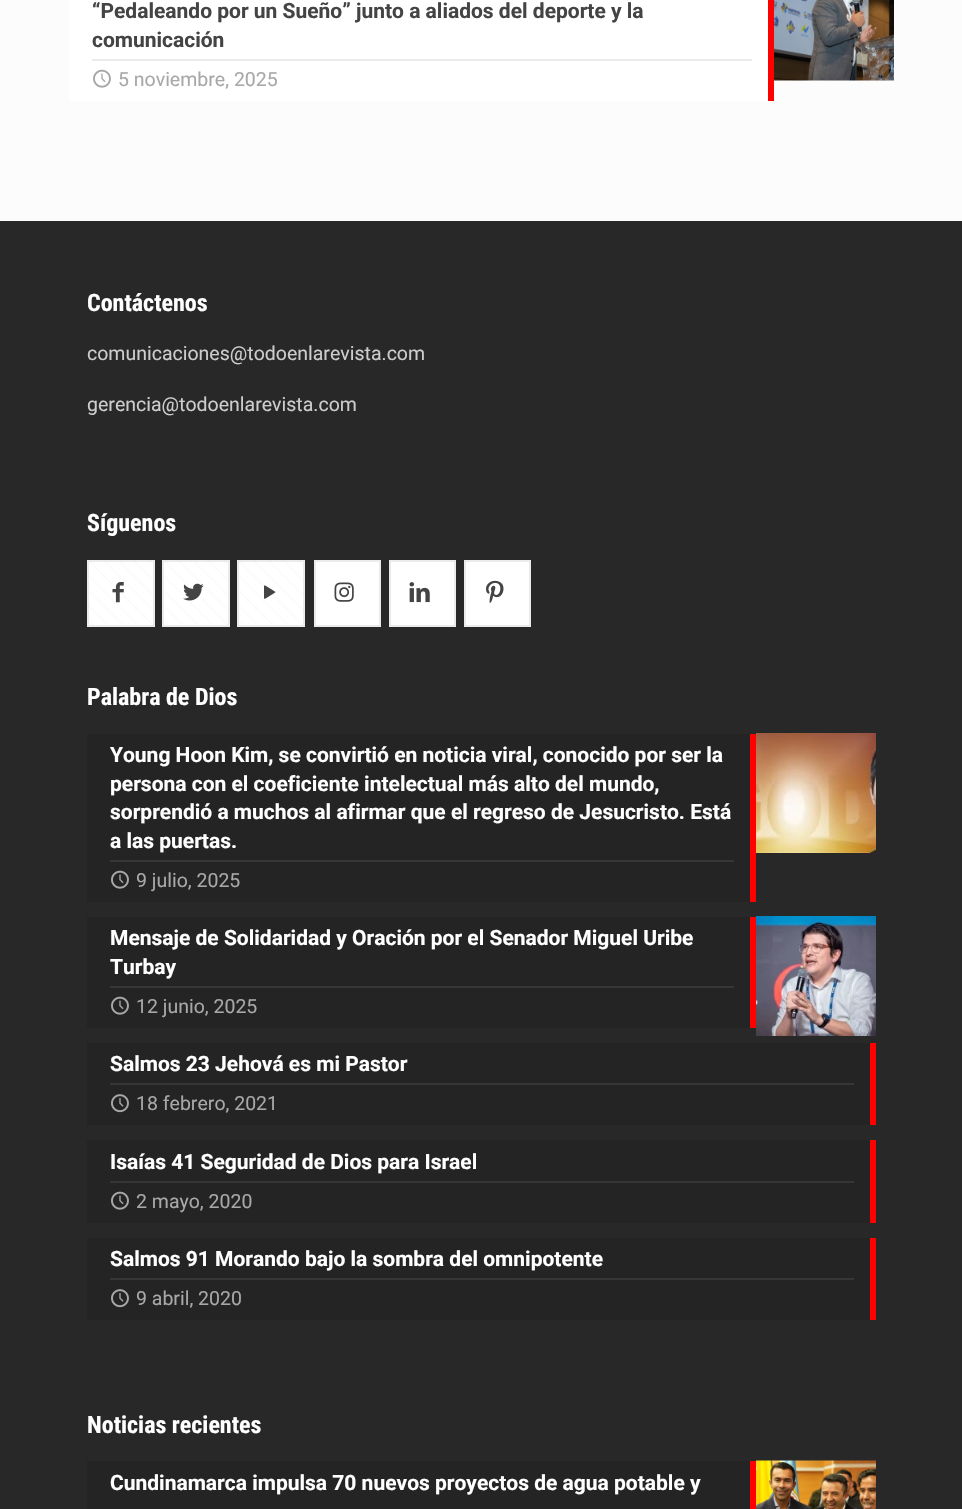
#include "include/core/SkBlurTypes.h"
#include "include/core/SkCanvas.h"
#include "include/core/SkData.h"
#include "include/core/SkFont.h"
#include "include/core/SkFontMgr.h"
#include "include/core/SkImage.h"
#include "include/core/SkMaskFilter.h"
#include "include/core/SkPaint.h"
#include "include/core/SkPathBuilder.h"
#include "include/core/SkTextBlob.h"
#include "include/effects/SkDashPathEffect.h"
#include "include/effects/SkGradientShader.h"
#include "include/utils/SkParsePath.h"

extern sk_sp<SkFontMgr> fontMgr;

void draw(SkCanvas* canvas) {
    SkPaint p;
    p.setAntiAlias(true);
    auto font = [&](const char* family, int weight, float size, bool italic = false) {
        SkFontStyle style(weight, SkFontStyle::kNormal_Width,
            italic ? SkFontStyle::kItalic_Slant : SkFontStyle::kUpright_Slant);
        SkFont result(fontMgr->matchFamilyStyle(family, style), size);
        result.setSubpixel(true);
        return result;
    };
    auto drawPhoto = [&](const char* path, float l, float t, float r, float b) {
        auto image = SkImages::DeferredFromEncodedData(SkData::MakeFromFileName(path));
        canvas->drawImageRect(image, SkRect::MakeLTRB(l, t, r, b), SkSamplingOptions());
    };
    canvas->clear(0xFFFCFCFC);
    p.setColor(0xFFFFFFFF);
    canvas->drawRect(SkRect::MakeLTRB(69, 0, 768, 101), p);
    p.setColor(0xFFEBEBEB);
    canvas->drawRect(SkRect::MakeLTRB(92, 59, 752, 61), p);
    auto font1 = font("Roboto", 700, 21);
    p.setColor(0xFF444444);
    canvas->drawString("“Pedaleando por un Sueño” junto a aliados del deporte y la", 92, 18, font1, p);
    canvas->drawString("comunicación", 92, 47, font1, p);
    p.setColor(0xFFFF0000);
    canvas->drawRect(SkRect::MakeLTRB(768, 0, 774, 101), p);
    drawPhoto("media/1.png", 93, 69, 111, 88);
    auto font2 = font("Roboto", 400, 19.5f);
    p.setColor(0xFFA8A8A8);
    canvas->drawString("5 noviembre, 2025", 118, 86, font2, p);
    drawPhoto("media/2.png", 774, 0, 894, 81);
    p.setColor(0xFF282828);
    canvas->drawRect(SkRect::MakeLTRB(0, 221, 962, 1509), p);
    auto font3 = font("Roboto Condensed", 700, 24);
    p.setColor(0xFFFFFFFF);
    canvas->drawString("Contáctenos", 87, 311, font3, p);
    p.setColor(0xFFCCCCCC);
    canvas->drawString("comunicaciones@todoenlarevista.com", 87, 360, font2, p);
    canvas->drawString("gerencia@todoenlarevista.com", 87, 411, font2, p);
    p.setColor(0xFFFFFFFF);
    canvas->drawString("Síguenos", 87, 531, font3, p);
    canvas->drawRect(SkRect::MakeLTRB(87, 560, 155, 627), p);
    drawPhoto("media/3.png", 89, 561, 153, 625);
    p.setStyle(SkPaint::kStroke_Style);
    p.setStrokeWidth(2);
    p.setColor(0x14000000);
    canvas->drawRect(SkRect::MakeLTRB(88, 561, 154, 626), p);
    drawPhoto("media/4.png", 112, 582, 124, 603);
    p.setStyle(SkPaint::kFill_Style);
    p.setColor(0xFFFFFFFF);
    canvas->drawRect(SkRect::MakeLTRB(162, 560, 230, 627), p);
    drawPhoto("media/3.png", 164, 561, 228, 625);
    p.setStyle(SkPaint::kStroke_Style);
    p.setColor(0x14000000);
    canvas->drawRect(SkRect::MakeLTRB(163, 561, 229, 626), p);
    drawPhoto("media/5.png", 183, 583, 204, 601);
    p.setStyle(SkPaint::kFill_Style);
    p.setColor(0xFFFFFFFF);
    canvas->drawRect(SkRect::MakeLTRB(237, 560, 305, 627), p);
    drawPhoto("media/3.png", 239, 561, 303, 625);
    p.setStyle(SkPaint::kStroke_Style);
    p.setColor(0x14000000);
    canvas->drawRect(SkRect::MakeLTRB(238, 561, 304, 626), p);
    drawPhoto("media/6.png", 264, 585, 276, 599);
    p.setStyle(SkPaint::kFill_Style);
    p.setColor(0xFFFFFFFF);
    canvas->drawRect(SkRect::MakeLTRB(314, 560, 381, 627), p);
    p.setStyle(SkPaint::kStroke_Style);
    p.setColor(0x14000000);
    canvas->drawRect(SkRect::MakeLTRB(315, 561, 380, 626), p);
    drawPhoto("media/7.png", 334, 582, 354, 602);
    p.setStyle(SkPaint::kFill_Style);
    p.setColor(0xFFFFFFFF);
    canvas->drawRect(SkRect::MakeLTRB(389, 560, 456, 627), p);
    p.setStyle(SkPaint::kStroke_Style);
    p.setColor(0x14000000);
    canvas->drawRect(SkRect::MakeLTRB(390, 561, 455, 626), p);
    drawPhoto("media/8.png", 409, 582, 430, 603);
    p.setStyle(SkPaint::kFill_Style);
    p.setColor(0xFFFFFFFF);
    canvas->drawRect(SkRect::MakeLTRB(464, 560, 531, 627), p);
    p.setStyle(SkPaint::kStroke_Style);
    p.setColor(0x14000000);
    canvas->drawRect(SkRect::MakeLTRB(465, 561, 530, 626), p);
    drawPhoto("media/9.png", 486, 580, 504, 604);
    p.setStyle(SkPaint::kFill_Style);
    p.setColor(0xFFFFFFFF);
    canvas->drawString("Palabra de Dios", 87, 705, font3, p);
    p.setColor(0xFF242424);
    canvas->drawRect(SkRect::MakeLTRB(87, 734, 750, 902), p);
    p.setColor(0xFF363636);
    canvas->drawRect(SkRect::MakeLTRB(110, 860, 734, 862), p);
    p.setColor(0xFFFFFFFF);
    {
        const struct { const char* s; float x, y; } items[] = {
            {"Young Hoon Kim, se convirtió en noticia viral, conocido por ser la", 110, 762},
            {"persona con el coeficiente intelectual más alto del mundo,", 110, 791},
            {"sorprendió a muchos al afirmar que el regreso de Jesucristo. Está", 110, 819},
            {"a las puertas.", 110, 848},
        };
        for (auto [s, x, y] : items) {
            canvas->drawString(s, x, y, font1, p);
        }
    }
    p.setColor(0xFFFF0000);
    canvas->drawRect(SkRect::MakeLTRB(750, 734, 756, 902), p);
    drawPhoto("media/10.png", 111, 870, 129, 889);
    p.setColor(0xFFA8A8A8);
    canvas->drawString("9 julio, 2025", 136, 887, font2, p);
    drawPhoto("media/11.png", 756, 733, 876, 853);
    p.setColor(0xFF242424);
    canvas->drawRect(SkRect::MakeLTRB(87, 917, 750, 1028), p);
    p.setColor(0xFF363636);
    canvas->drawRect(SkRect::MakeLTRB(110, 986, 734, 988), p);
    p.setColor(0xFFFFFFFF);
    canvas->drawString("Mensaje de Solidaridad y Oración por el Senador Miguel Uribe", 110, 945, font1, p);
    canvas->drawString("Turbay", 110, 974, font1, p);
    p.setColor(0xFFFF0000);
    canvas->drawRect(SkRect::MakeLTRB(750, 917, 756, 1028), p);
    drawPhoto("media/10.png", 111, 996, 129, 1015);
    p.setColor(0xFFA8A8A8);
    canvas->drawString("12 junio, 2025", 136, 1013, font2, p);
    drawPhoto("media/12.png", 756, 916, 876, 1036);
    p.setColor(0xFF242424);
    canvas->drawRect(SkRect::MakeLTRB(87, 1043, 870, 1125), p);
    p.setColor(0xFF363636);
    canvas->drawRect(SkRect::MakeLTRB(110, 1083, 854, 1085), p);
    p.setColor(0xFFFFFFFF);
    canvas->drawString("Salmos 23 Jehová es mi Pastor", 110, 1071, font1, p);
    p.setColor(0xFFFF0000);
    canvas->drawRect(SkRect::MakeLTRB(870, 1043, 876, 1125), p);
    drawPhoto("media/13.png", 111, 1094, 129, 1113);
    p.setColor(0xFFA8A8A8);
    canvas->drawString("18 febrero, 2021", 136, 1110, font2, p);
    p.setColor(0xFF242424);
    canvas->drawRect(SkRect::MakeLTRB(87, 1140, 870, 1223), p);
    p.setColor(0xFF363636);
    canvas->drawRect(SkRect::MakeLTRB(110, 1181, 854, 1183), p);
    p.setColor(0xFFFFFFFF);
    canvas->drawString("Isaías 41 Seguridad de Dios para Israel", 110, 1169, font1, p);
    p.setColor(0xFFFF0000);
    canvas->drawRect(SkRect::MakeLTRB(870, 1140, 876, 1223), p);
    drawPhoto("media/10.png", 111, 1191, 129, 1210);
    p.setColor(0xFFA8A8A8);
    canvas->drawString("2 mayo, 2020", 136, 1208, font2, p);
    p.setColor(0xFF242424);
    canvas->drawRect(SkRect::MakeLTRB(87, 1238, 870, 1320), p);
    p.setColor(0xFF363636);
    canvas->drawRect(SkRect::MakeLTRB(110, 1278, 854, 1280), p);
    p.setColor(0xFFFFFFFF);
    canvas->drawString("Salmos 91 Morando bajo la sombra del omnipotente", 110, 1266, font1, p);
    p.setColor(0xFFFF0000);
    canvas->drawRect(SkRect::MakeLTRB(870, 1238, 876, 1320), p);
    drawPhoto("media/13.png", 111, 1289, 129, 1308);
    p.setColor(0xFFA8A8A8);
    canvas->drawString("9 abril, 2020", 136, 1305, font2, p);
    p.setColor(0xFFFFFFFF);
    canvas->drawString("Noticias recientes", 87, 1433, font3, p);
    p.setColor(0xFF242424);
    canvas->drawRect(SkRect::MakeLTRB(87, 1461, 750, 1509), p);
    p.setColor(0xFFFFFFFF);
    canvas->drawString("Cundinamarca impulsa 70 nuevos proyectos de agua potable y", 110, 1490, font1, p);
    p.setColor(0xFFFF0000);
    canvas->drawRect(SkRect::MakeLTRB(750, 1461, 756, 1509), p);
    drawPhoto("media/14.png", 756, 1460, 876, 1509);
}
